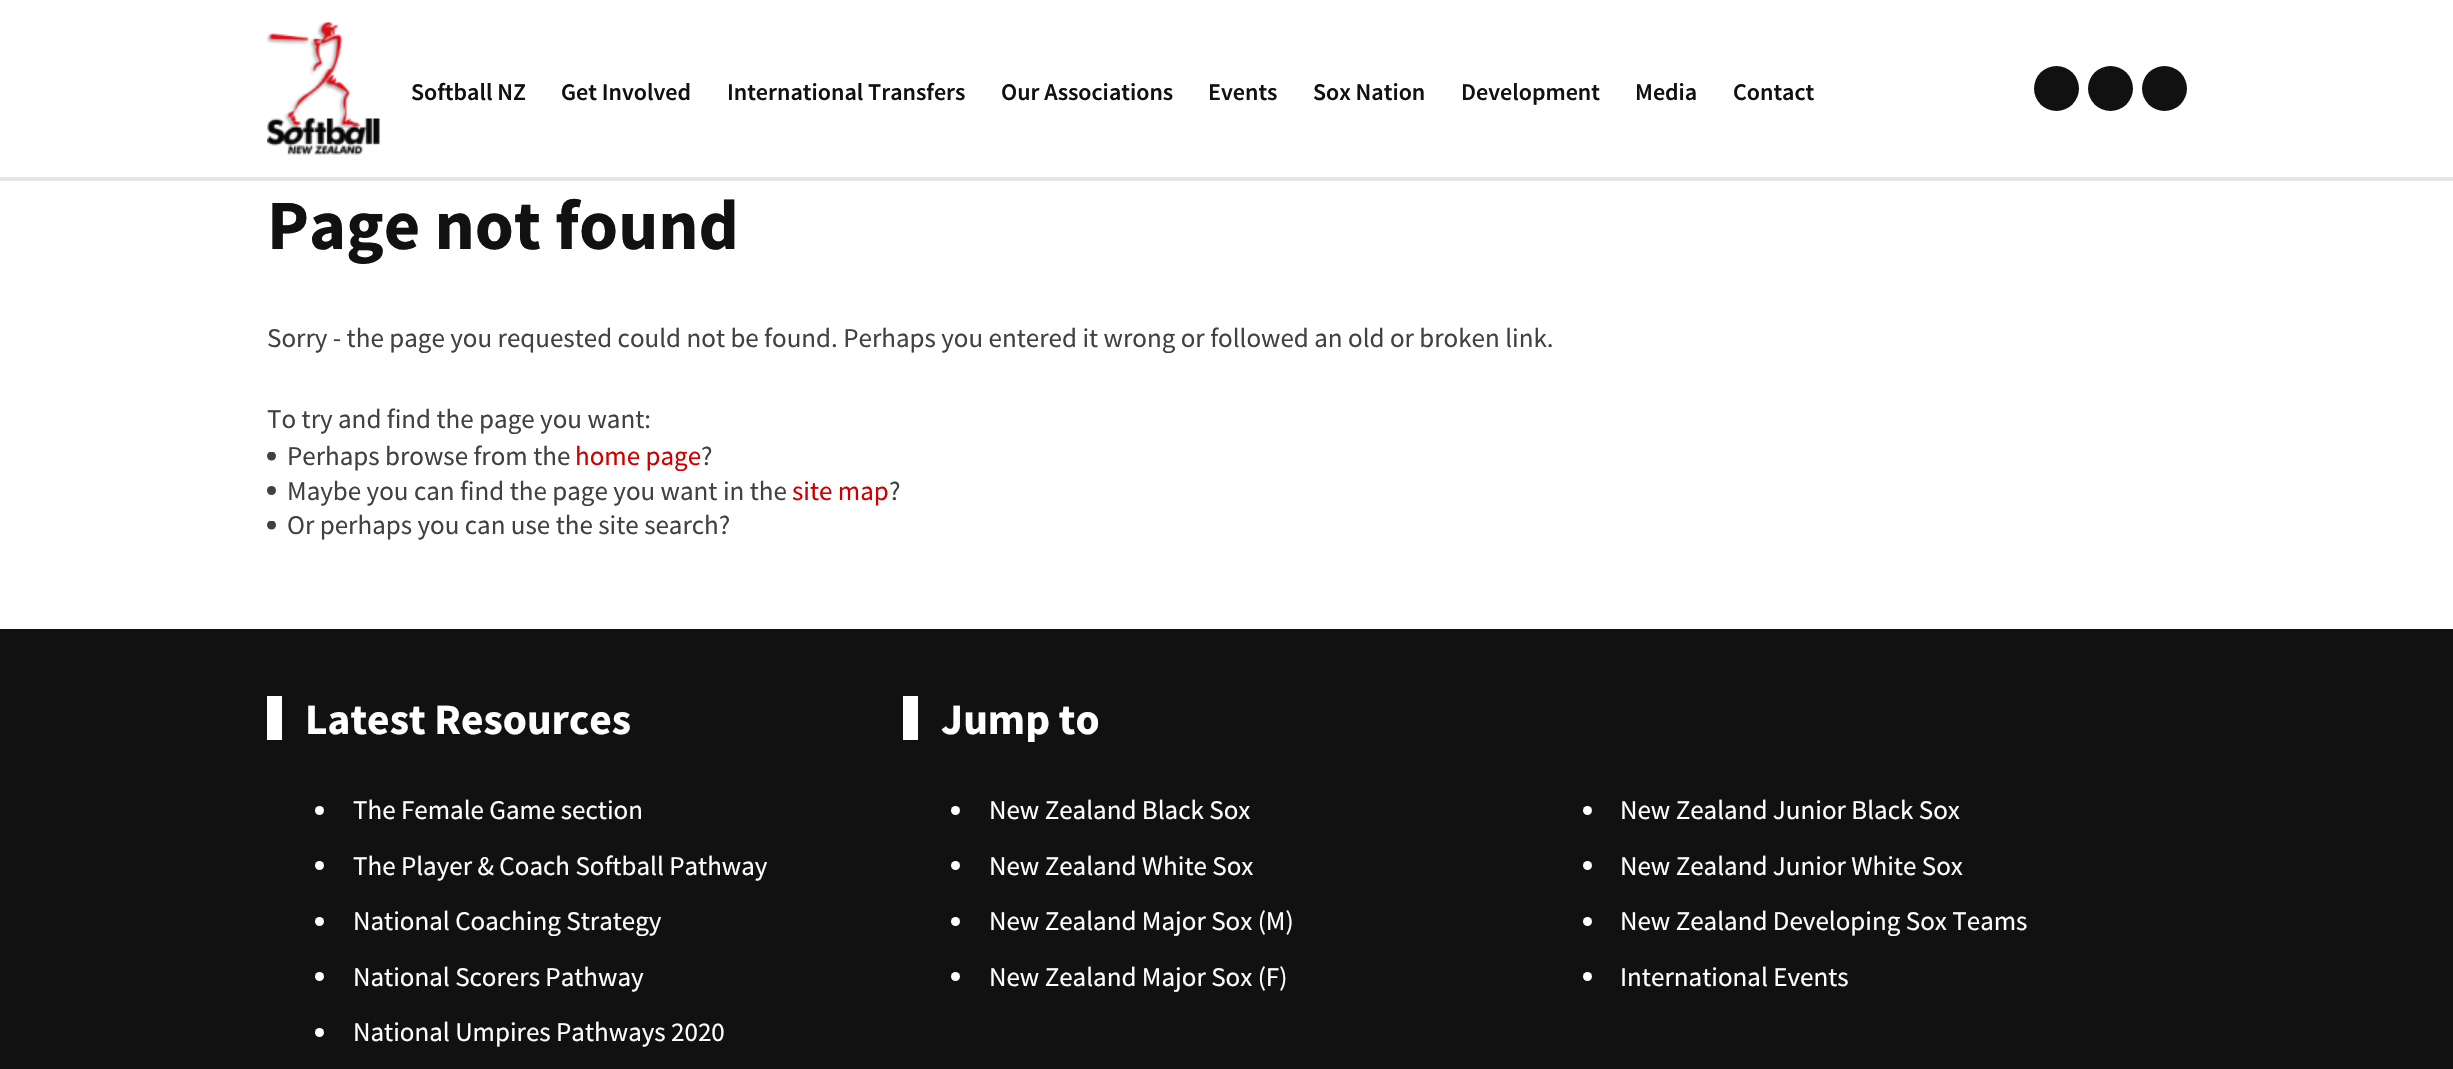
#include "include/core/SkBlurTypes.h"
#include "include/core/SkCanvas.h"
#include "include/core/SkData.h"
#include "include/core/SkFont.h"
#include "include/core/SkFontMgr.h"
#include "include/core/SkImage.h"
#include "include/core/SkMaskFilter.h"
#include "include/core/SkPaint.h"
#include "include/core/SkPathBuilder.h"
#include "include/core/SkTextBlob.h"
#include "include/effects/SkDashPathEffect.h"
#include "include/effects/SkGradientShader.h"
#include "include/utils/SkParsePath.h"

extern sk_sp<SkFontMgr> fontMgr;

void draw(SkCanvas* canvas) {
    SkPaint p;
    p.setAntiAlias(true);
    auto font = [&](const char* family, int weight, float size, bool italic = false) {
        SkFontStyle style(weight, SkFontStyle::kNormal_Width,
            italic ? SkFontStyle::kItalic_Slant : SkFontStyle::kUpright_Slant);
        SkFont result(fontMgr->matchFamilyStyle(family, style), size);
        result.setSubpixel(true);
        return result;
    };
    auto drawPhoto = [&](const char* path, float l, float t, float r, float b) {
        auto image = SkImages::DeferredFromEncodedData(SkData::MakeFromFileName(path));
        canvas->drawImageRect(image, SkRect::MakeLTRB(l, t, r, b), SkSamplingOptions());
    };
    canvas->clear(0xFFFFFFFF);
    drawPhoto("media/1.png", 267, 22, 380, 155);
    auto font1 = font("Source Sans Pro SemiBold", 600, 24);
    p.setColor(0xFF111111);
    {
        const struct { const char* s; float x, y; } items[] = {
            {"Softball NZ", 411, 100},
            {"Get Involved", 561, 100},
            {"International Transfers", 727, 100},
            {"Our Associations", 1001, 100},
            {"Events", 1208, 100},
            {"Sox Nation", 1313, 100},
            {"Development", 1461, 100},
            {"Media", 1635, 100},
            {"Contact", 1733, 100},
        };
        for (auto [s, x, y] : items) {
            canvas->drawString(s, x, y, font1, p);
        }
    }
    canvas->drawCircle(2056.5f, 88.5f, 22.5f, p);
    canvas->drawCircle(2110.5f, 88.5f, 22.5f, p);
    canvas->drawCircle(2164.5f, 88.5f, 22.5f, p);
    p.setColor(0xFFE6E6E6);
    canvas->drawRect(SkRect::MakeLTRB(0, 177, 2453, 181), p);
    auto font2 = font("Source Sans Pro", 700, 70.5f);
    p.setColor(0xFF111111);
    canvas->drawString("Page not found", 267, 249, font2, p);
    auto font3 = font("Source Sans Pro", 400, 27);
    p.setColor(0xFF414042);
    canvas->drawString("Sorry - the page you requested could not be found. Perhaps you entered it wrong or followed an old or broken link.", 267, 347, font3, p);
    canvas->drawString("To try and find the page you want:", 267, 428, font3, p);
    canvas->save();
    canvas->clipRect(SkRect::MakeLTRB(267, 452, 276, 461));
    canvas->drawCircle(271.5f, 456, 4.5f, p);
    canvas->restore();
    canvas->drawString("Perhaps browse from the", 287, 465, font3, p);
    p.setColor(0xFFCC0000);
    canvas->drawString("home page", 575, 465, font3, p);
    p.setColor(0xFF414042);
    canvas->drawString("?", 701, 465, font3, p);
    canvas->drawCircle(271.5f, 490.5f, 4.5f, p);
    canvas->drawString("Maybe you can find the page you want in the", 287, 500, font3, p);
    p.setColor(0xFFCC0000);
    canvas->drawString("site map", 792, 500, font3, p);
    p.setColor(0xFF414042);
    canvas->drawString("?", 889, 500, font3, p);
    canvas->save();
    canvas->clipRect(SkRect::MakeLTRB(267, 521, 276, 530));
    canvas->drawCircle(271.5f, 525, 4.5f, p);
    canvas->restore();
    canvas->drawString("Or perhaps you can use the site search?", 287, 534, font3, p);
    p.setColor(0xFF111111);
    canvas->drawRect(SkRect::MakeLTRB(0, 629, 2453, 1069), p);
    p.setColor(0xFFFFFFFF);
    canvas->drawRect(SkRect::MakeLTRB(267, 696, 282, 740), p);
    auto font4 = font("Source Sans Pro", 700, 43.5f);
    canvas->drawString("Latest Resources", 305, 734, font4, p);
    canvas->drawCircle(319.5f, 810.5f, 4.5f, p);
    canvas->drawString("The Female Game section", 353, 819, font3, p);
    canvas->drawCircle(319.5f, 865.5f, 4.5f, p);
    canvas->drawString("The Player & Coach Softball Pathway", 353, 875, font3, p);
    canvas->drawCircle(319.5f, 921.5f, 4.5f, p);
    canvas->drawString("National Coaching Strategy", 353, 930, font3, p);
    canvas->drawCircle(319.5f, 976.5f, 4.5f, p);
    canvas->drawString("National Scorers Pathway", 353, 986, font3, p);
    canvas->drawCircle(319.5f, 1032.5f, 4.5f, p);
    canvas->drawString("National Umpires Pathways 2020", 353, 1041, font3, p);
    canvas->drawRect(SkRect::MakeLTRB(903, 696, 918, 740), p);
    canvas->drawString("Jump to", 941, 734, font4, p);
    canvas->drawCircle(955.5f, 810.5f, 4.5f, p);
    canvas->drawString("New Zealand Black Sox", 989, 819, font3, p);
    canvas->drawCircle(1587.5f, 810.5f, 4.5f, p);
    canvas->drawString("New Zealand Junior Black Sox", 1620, 819, font3, p);
    canvas->drawCircle(955.5f, 865.5f, 4.5f, p);
    canvas->drawString("New Zealand White Sox", 989, 875, font3, p);
    canvas->drawCircle(1587.5f, 865.5f, 4.5f, p);
    canvas->drawString("New Zealand Junior White Sox", 1620, 875, font3, p);
    canvas->drawCircle(955.5f, 921.5f, 4.5f, p);
    canvas->drawString("New Zealand Major Sox (M)", 989, 930, font3, p);
    canvas->drawCircle(1587.5f, 921.5f, 4.5f, p);
    canvas->drawString("New Zealand Developing Sox Teams", 1620, 930, font3, p);
    canvas->drawCircle(955.5f, 976.5f, 4.5f, p);
    canvas->drawString("New Zealand Major Sox (F)", 989, 986, font3, p);
    canvas->drawCircle(1587.5f, 976.5f, 4.5f, p);
    canvas->drawString("International Events", 1620, 986, font3, p);
}
